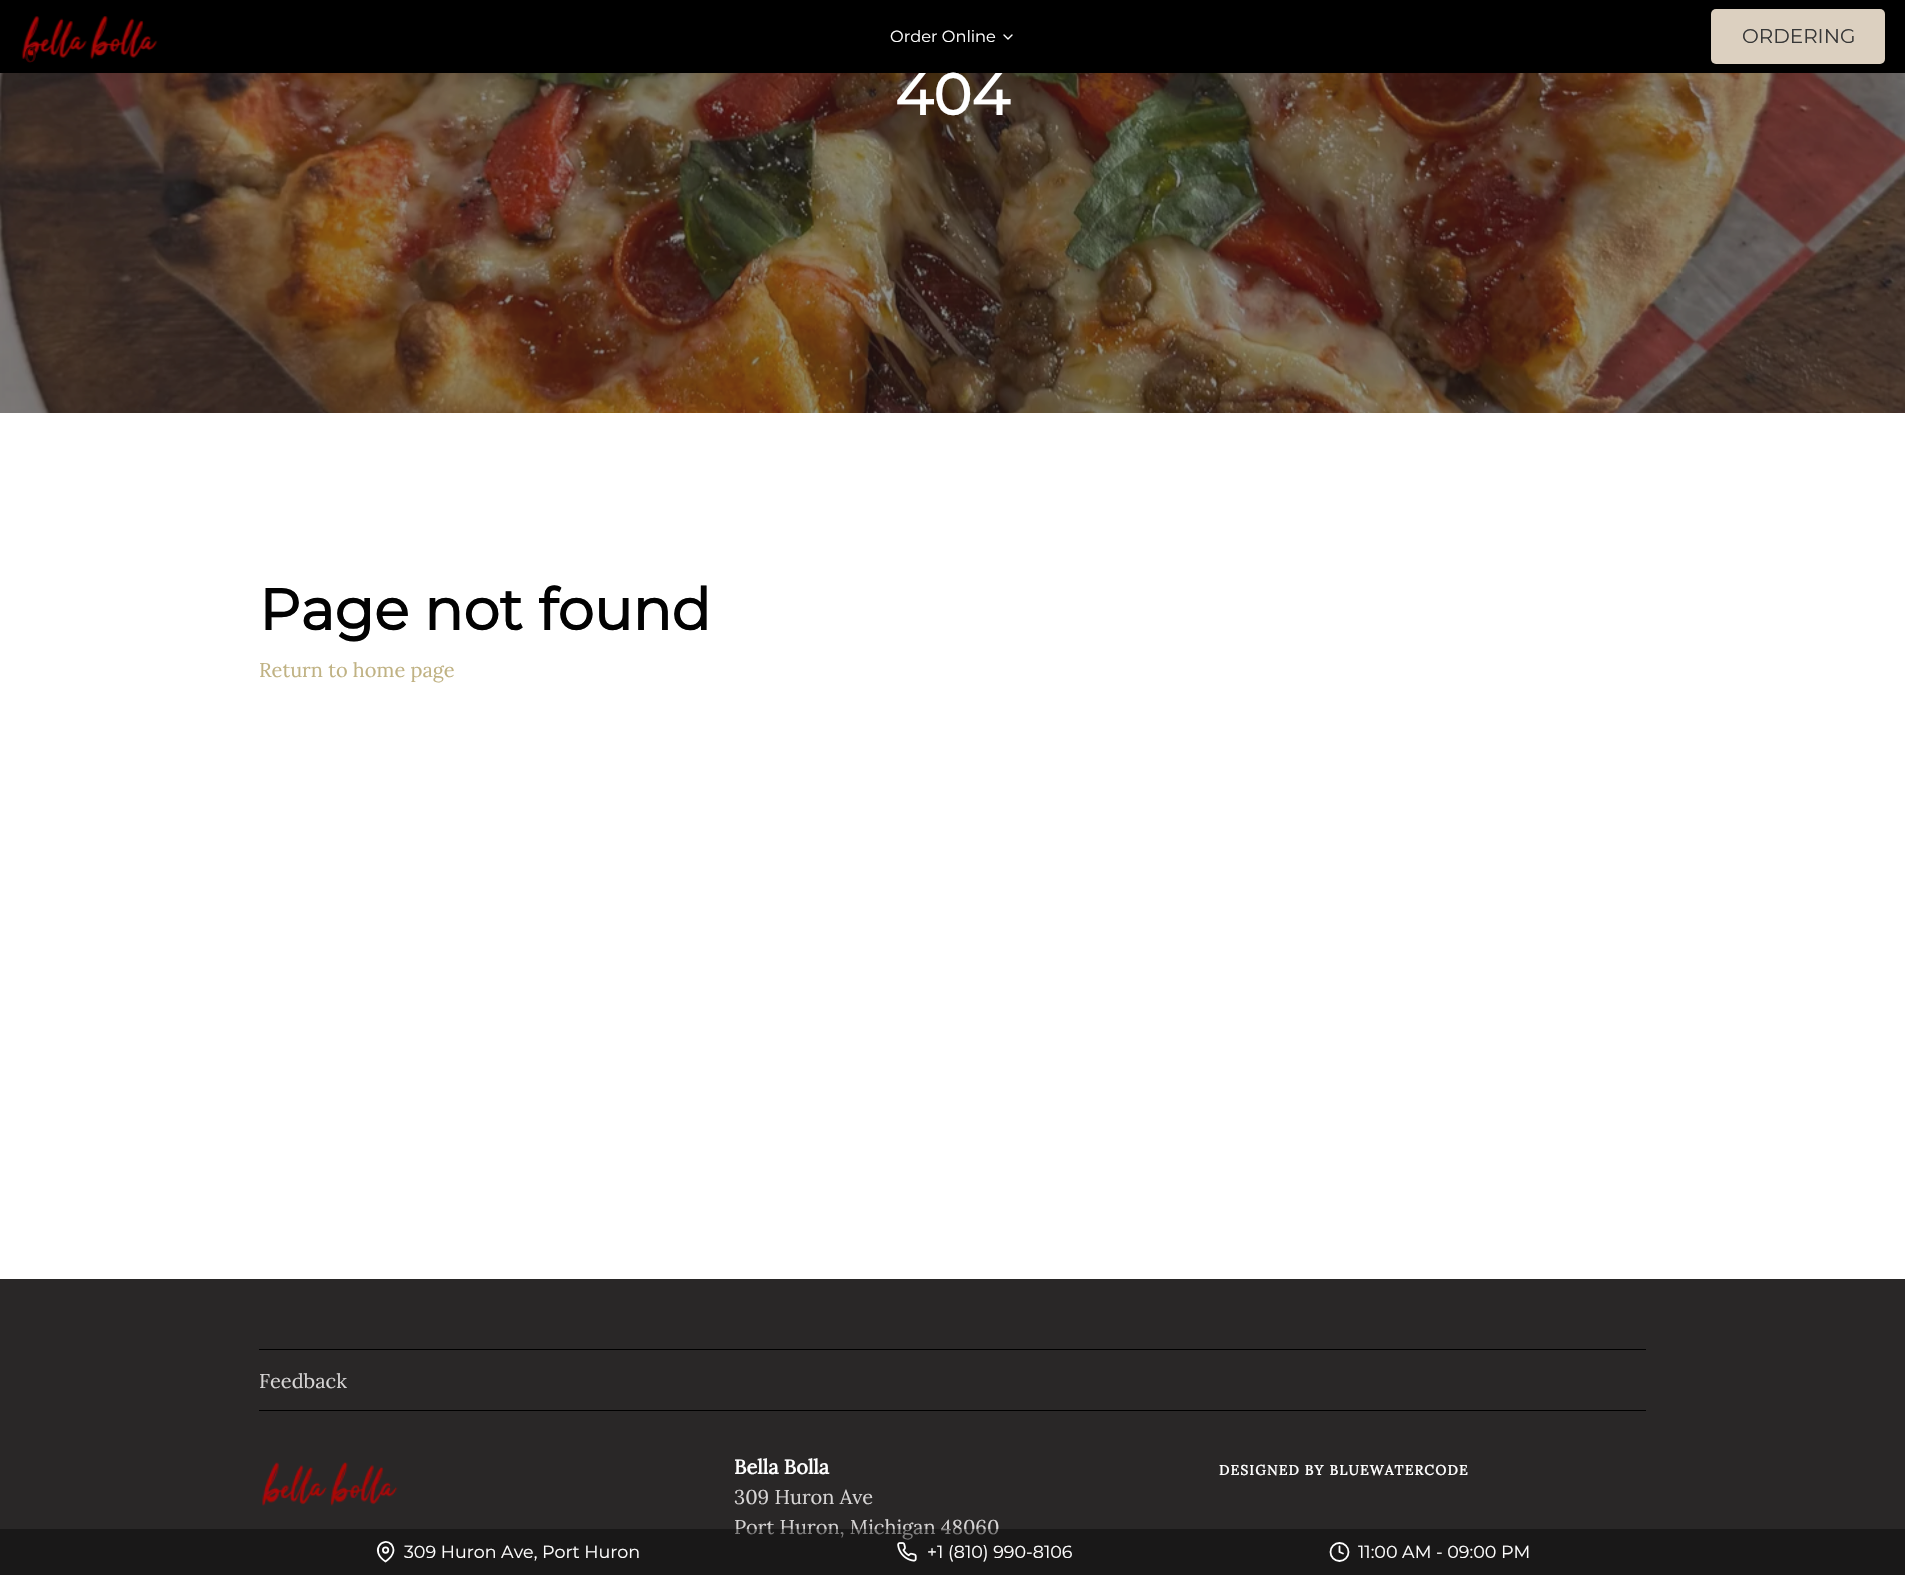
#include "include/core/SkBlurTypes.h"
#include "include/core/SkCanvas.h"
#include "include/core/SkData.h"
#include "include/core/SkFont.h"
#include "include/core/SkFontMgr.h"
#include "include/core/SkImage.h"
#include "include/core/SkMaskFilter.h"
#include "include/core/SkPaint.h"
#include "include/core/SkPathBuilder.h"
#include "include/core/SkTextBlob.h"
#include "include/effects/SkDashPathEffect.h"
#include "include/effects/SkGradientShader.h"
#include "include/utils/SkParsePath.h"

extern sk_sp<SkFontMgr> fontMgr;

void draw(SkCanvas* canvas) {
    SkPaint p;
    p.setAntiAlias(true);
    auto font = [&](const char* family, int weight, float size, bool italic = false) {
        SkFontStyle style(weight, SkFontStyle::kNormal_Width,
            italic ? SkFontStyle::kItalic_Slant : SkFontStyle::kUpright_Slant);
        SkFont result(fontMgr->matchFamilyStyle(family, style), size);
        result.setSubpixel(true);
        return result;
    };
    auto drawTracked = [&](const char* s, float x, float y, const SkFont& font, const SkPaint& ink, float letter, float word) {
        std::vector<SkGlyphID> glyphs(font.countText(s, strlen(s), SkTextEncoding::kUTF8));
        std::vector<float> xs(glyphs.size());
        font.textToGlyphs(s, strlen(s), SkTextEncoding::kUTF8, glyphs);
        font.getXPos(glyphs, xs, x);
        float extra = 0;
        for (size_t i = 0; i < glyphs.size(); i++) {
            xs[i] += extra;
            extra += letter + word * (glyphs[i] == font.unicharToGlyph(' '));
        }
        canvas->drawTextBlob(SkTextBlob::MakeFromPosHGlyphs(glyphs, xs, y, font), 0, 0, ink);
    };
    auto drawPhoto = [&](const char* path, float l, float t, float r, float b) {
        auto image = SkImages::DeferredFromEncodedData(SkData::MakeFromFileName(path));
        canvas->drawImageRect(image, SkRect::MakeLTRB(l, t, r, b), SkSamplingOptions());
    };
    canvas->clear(0xFFFFFFFF);
    p.setColor(0xFF000000);
    canvas->drawRect(SkRect::MakeLTRB(0, 0, 1905, 73), p);
    drawPhoto("media/1.png", 21, 16, 158, 59);
    auto font1 = font("Montserrat", 100, 16.25f);
    p.setColor(0xFFFFFFFF);
    canvas->drawString("Order Online", 890, 42, font1, p);
    p.setStyle(SkPaint::kStroke_Style);
    p.setStrokeWidth(1.4f);
    p.setStrokeCap(SkPaint::kRound_Cap);
    p.setStrokeJoin(SkPaint::kRound_Join);
    canvas->drawPath(SkPathBuilder().moveTo(1004, 35).lineTo(1008, 39).lineTo(1012, 35).detach(), p);
    p.setStyle(SkPaint::kFill_Style);
    p.setColor(0xFFDCD0C0);
    canvas->drawRoundRect(SkRect::MakeLTRB(1711, 9, 1885, 64), 5, 5, p);
    auto font2 = font("Montserrat", 100, 20);
    p.setColor(0xFF373737);
    canvas->drawString("ORDERING", 1742, 43, font2, p);
    auto font3 = font("Lora", 700, 20);
    p.setColor(0xFF3C0202);
    canvas->drawString("0", 24, 62, font3, p);
    drawPhoto("media/2.png", 0, 73, 1905, 413);
    auto font4 = font("Montserrat", 700, 57.75f);
    p.setColor(0xFFFFFFFF);
    canvas->drawString("404", 895, 115, font4, p);
    p.setColor(0xFF020202);
    canvas->drawString("Page not found", 259, 630, font4, p);
    auto font5 = font("Lora", 400, 20);
    p.setColor(0xFFC0B283);
    canvas->drawString("Return to home page", 259, 677, font5, p);
    {
        const struct { float l, t, r, b; SkColor color; } items[] = {
            {0, 1279, 1905, 1575, 0xFF292727},
            {259, 1349, 1646, 1350, 0xFF000000},
            {259, 1410, 1646, 1411, 0xFF000000},
        };
        for (auto [l, t, r, b, color] : items) {
            p.setColor(color);
            canvas->drawRect(SkRect::MakeLTRB(l, t, r, b), p);
        }
    }
    p.setColor(0xFFD6D4D4);
    canvas->drawString("Feedback", 259, 1388, font5, p);
    drawPhoto("media/3.png", 262, 1462, 398, 1506);
    p.setColor(0xFFFFFFFF);
    canvas->drawString("Bella Bolla", 734, 1474, font3, p);
    p.setColor(0xFFD6D4D4);
    canvas->drawString("309 Huron Ave", 734, 1504, font5, p);
    canvas->drawString("Port Huron, Michigan 48060", 734, 1534, font5, p);
    auto font6 = font("Lora", 700, 13.75f);
    p.setColor(0xFFFFFFFF);
    drawTracked("DESIGNED BY BLUEWATERCODE", 1219, 1475, font6, p, 1.25f, 0);
    p.setColor(0x66000000);
    canvas->drawRect(SkRect::MakeLTRB(0, 1529, 1905, 1575), p);
    p.setStyle(SkPaint::kStroke_Style);
    p.setStrokeWidth(1.8f);
    p.setColor(0xFFFFFFFF);
    canvas->drawPath(SkPathBuilder().moveTo(393.5f, 1550).cubicTo(393.5f, 1556.5f, 385.5f, 1561.5f, 385.5f, 1561.5f).cubicTo(369, 1550.5f, 383, 1536, 391.5f, 1544.5f).cubicTo(392.5f, 1546, 393.5f, 1548, 393.5f, 1550).close().detach(), p);
    p.setStrokeCap(SkPaint::kButt_Cap);
    p.setStrokeJoin(SkPaint::kMiter_Join);
    canvas->drawCircle(385.6f, 1550.1f, 2.7f, p);
    auto font7 = font("Montserrat", 100, 17.5f);
    p.setStyle(SkPaint::kFill_Style);
    canvas->drawString("309 Huron Ave, Port Huron", 404, 1558, font7, p);
    drawPhoto("media/4.png", 897, 1542, 917, 1562);
    canvas->drawString("+1 (810) 990-8106", 927, 1558, font7, p);
    p.setStyle(SkPaint::kStroke_Style);
    canvas->drawCircle(1339.5f, 1552, 9, p);
    p.setStrokeCap(SkPaint::kRound_Cap);
    p.setStrokeJoin(SkPaint::kRound_Join);
    canvas->drawPath(SkPathBuilder().moveTo(1339.5f, 1546.5f).lineTo(1339.5f, 1552).lineTo(1343, 1553.5f).detach(), p);
    p.setStyle(SkPaint::kFill_Style);
    canvas->drawString("11:00 AM - 09:00 PM", 1358, 1558, font7, p);
}
